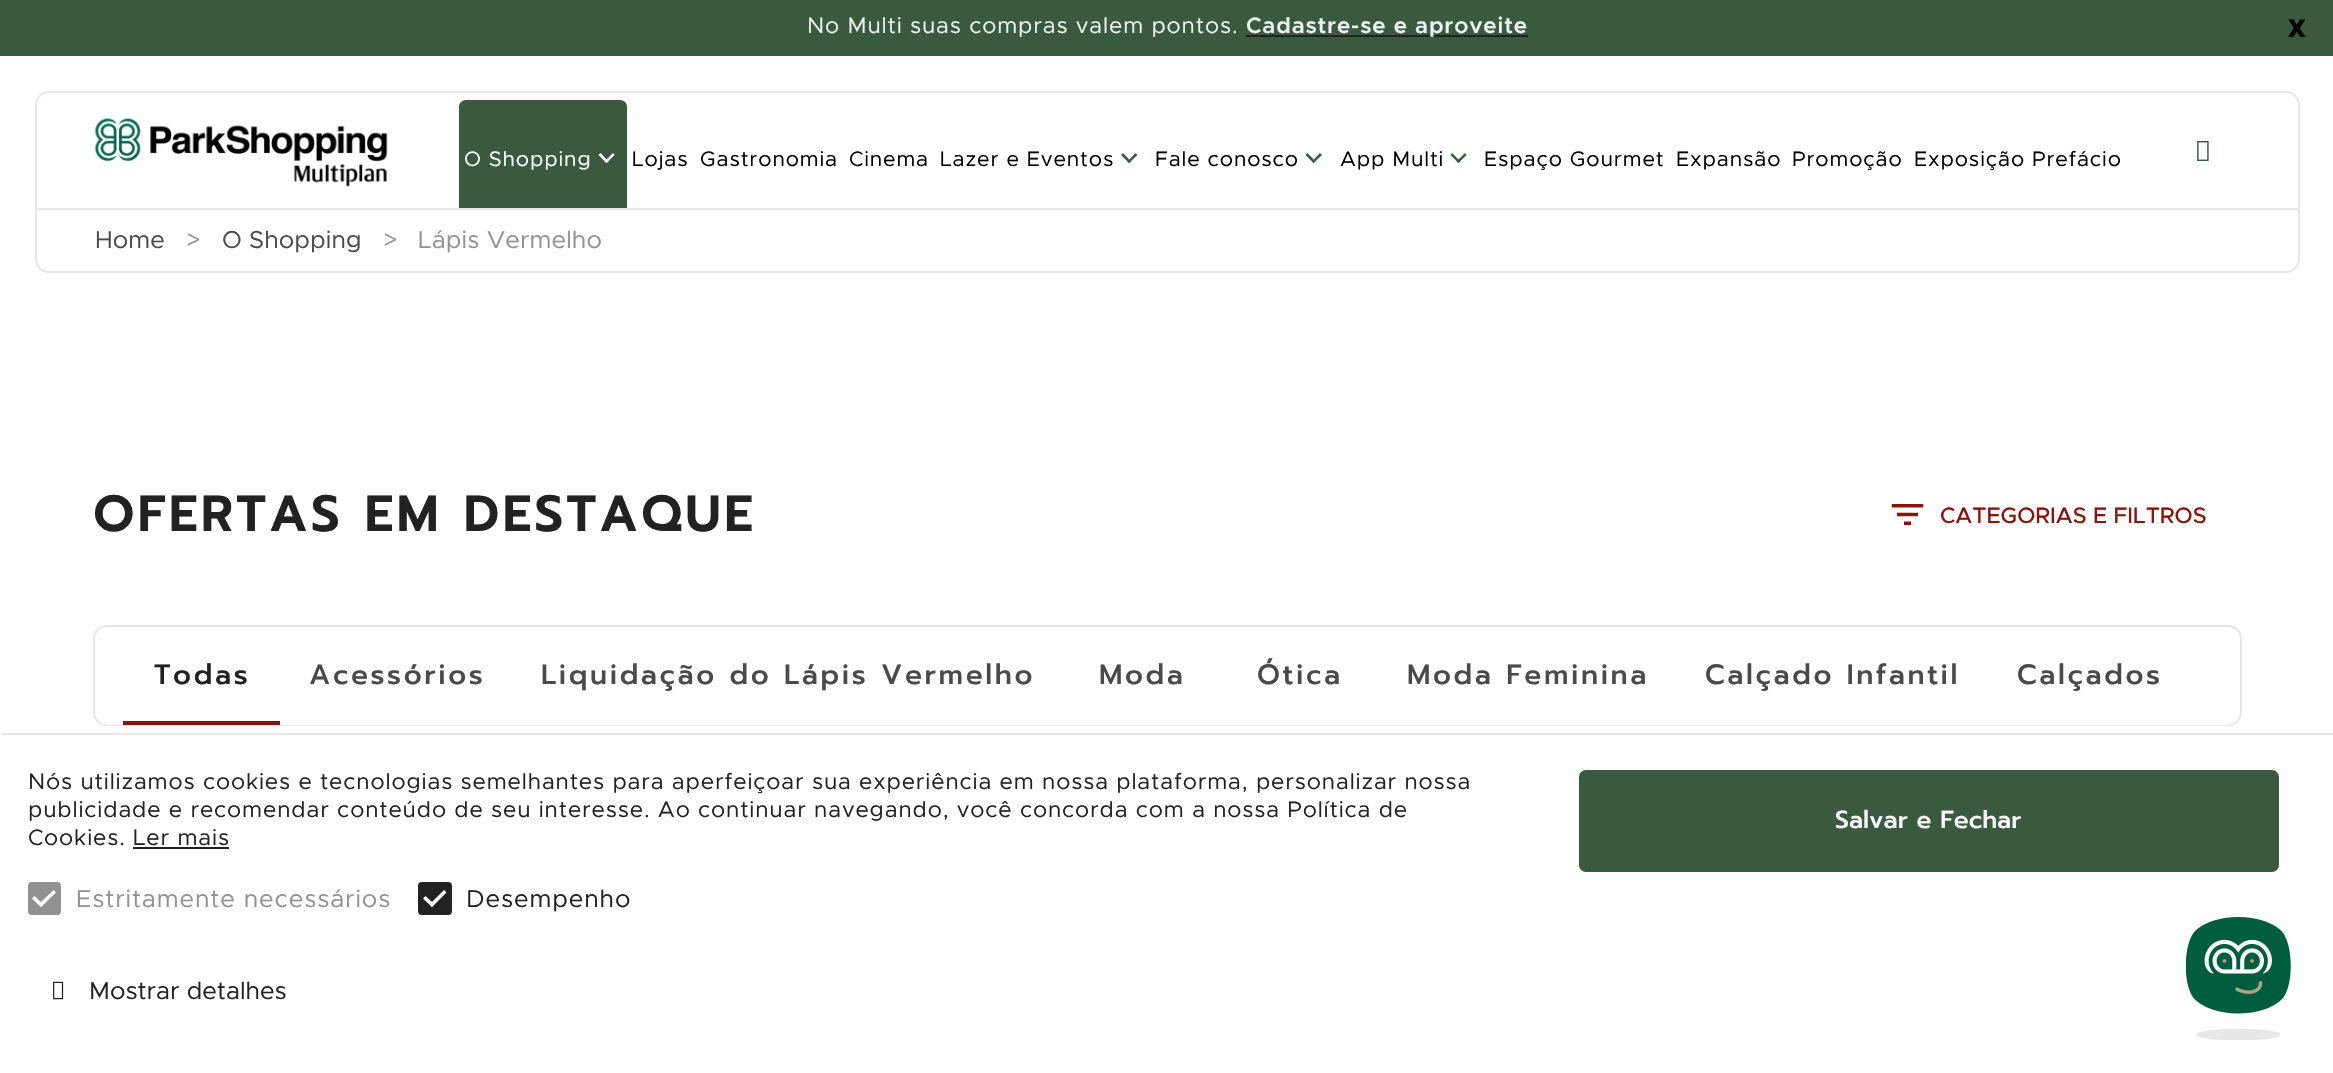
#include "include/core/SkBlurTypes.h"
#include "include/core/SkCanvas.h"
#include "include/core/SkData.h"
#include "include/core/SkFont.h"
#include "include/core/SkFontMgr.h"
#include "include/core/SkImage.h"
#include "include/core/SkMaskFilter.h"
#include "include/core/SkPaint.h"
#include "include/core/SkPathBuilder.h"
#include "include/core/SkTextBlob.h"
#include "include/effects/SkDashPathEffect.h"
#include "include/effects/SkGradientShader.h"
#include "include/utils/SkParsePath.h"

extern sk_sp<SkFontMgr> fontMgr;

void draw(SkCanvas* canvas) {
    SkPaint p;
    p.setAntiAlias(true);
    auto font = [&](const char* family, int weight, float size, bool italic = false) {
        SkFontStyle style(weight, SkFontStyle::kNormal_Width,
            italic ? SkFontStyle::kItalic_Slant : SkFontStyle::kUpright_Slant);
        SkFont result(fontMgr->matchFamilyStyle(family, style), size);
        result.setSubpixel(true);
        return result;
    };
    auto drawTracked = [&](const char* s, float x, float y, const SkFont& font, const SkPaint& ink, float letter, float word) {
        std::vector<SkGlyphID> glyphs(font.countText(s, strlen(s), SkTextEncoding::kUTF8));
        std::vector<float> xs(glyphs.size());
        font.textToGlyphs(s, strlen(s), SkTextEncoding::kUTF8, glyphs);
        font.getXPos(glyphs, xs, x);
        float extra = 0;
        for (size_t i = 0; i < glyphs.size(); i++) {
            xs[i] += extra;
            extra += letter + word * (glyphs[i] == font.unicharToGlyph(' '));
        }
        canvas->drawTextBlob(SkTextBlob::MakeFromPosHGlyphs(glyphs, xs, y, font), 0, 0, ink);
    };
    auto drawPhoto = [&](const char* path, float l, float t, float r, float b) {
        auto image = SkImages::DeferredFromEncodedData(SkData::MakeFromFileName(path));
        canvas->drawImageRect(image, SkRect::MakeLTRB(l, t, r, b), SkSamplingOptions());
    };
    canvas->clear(0xFFFFFFFF);
    p.setStyle(SkPaint::kStroke_Style);
    p.setStrokeWidth(2);
    p.setColor(0xFFE6E6E6);
    canvas->drawPath(SkPathBuilder().moveTo(49, 92).lineTo(2286, 92).cubicTo(2293, 92, 2299, 98, 2299, 105).lineTo(2299, 209).lineTo(36, 209).lineTo(36, 105).cubicTo(36, 98, 42, 92, 49, 92).close().detach(), p);
    p.setStyle(SkPaint::kFill_Style);
    p.setColor(0xFF395A3F);
    canvas->drawRect(SkRect::MakeLTRB(0, 0, 2333, 56), p);
    auto font1 = font("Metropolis", 400, 22.4f);
    p.setColor(0xFFECF0F1);
    drawTracked("No Multi suas compras valem pontos.", 807, 33, font1, p, 0.87f, 0);
    p.setColor(0xFF222222);
    canvas->drawRect(SkRect::MakeLTRB(1246, 35, 1528, 37), p);
    auto font2 = font("Metropolis", 600, 22.4f);
    p.setColor(0xFFECF0F1);
    drawTracked("Cadastre-se e aproveite", 1246, 33, font2, p, 0.87f, 0);
    auto font3 = font("Noto Sans", 900, 24.5f);
    p.setColor(0xFF000000);
    canvas->drawString("X", 2288, 37, font3, p);
    drawPhoto("media/1.png", 94, 118, 388, 187);
    p.setColor(0xFF395A3F);
    canvas->drawPath(SkPathBuilder().moveTo(466, 100).lineTo(620, 100).cubicTo(624, 100, 627, 103, 627, 107).lineTo(627, 208).lineTo(459, 208).lineTo(459, 107).cubicTo(459, 103, 462, 100, 466, 100).close().detach(), p);
    auto font4 = font("Metropolis", 400, 21);
    p.setColor(0xFFFFFFFF);
    drawTracked("O Shopping", 464, 166, font4, p, 0.87f, 0);
    canvas->drawPath(SkPathBuilder().moveTo(614.5f, 155).lineTo(606.5f, 163).lineTo(604.5f, 161.5f).lineTo(613, 153).close().detach(), p);
    canvas->drawPath(SkPathBuilder().moveTo(608.5f, 161.5f).lineTo(606.5f, 163).lineTo(598.5f, 155).lineTo(600.5f, 153).close().detach(), p);
    p.setColor(0xFF000000);
    {
        const struct { const char* s; float x, y; } items[] = {
            {"Lojas", 632, 166},
            {"Gastronomia", 700, 166},
            {"Cinema", 849, 166},
            {"Lazer e Eventos", 940, 166},
        };
        for (auto [s, x, y] : items) {
            drawTracked(s, x, y, font4, p, 0.87f, 0);
        }
    }
    p.setColor(0xFF395A3F);
    canvas->drawPath(SkPathBuilder().moveTo(1137.5f, 155).lineTo(1129, 163).lineTo(1127.5f, 161.5f).lineTo(1135.5f, 153).close().detach(), p);
    canvas->drawPath(SkPathBuilder().moveTo(1131, 161.5f).lineTo(1129, 163).lineTo(1121, 155).lineTo(1123, 153).close().detach(), p);
    p.setColor(0xFF000000);
    drawTracked("Fale conosco", 1155, 166, font4, p, 0.87f, 0);
    p.setColor(0xFF395A3F);
    canvas->drawPath(SkPathBuilder().moveTo(1322, 155).lineTo(1313.5f, 163).lineTo(1312, 161.5f).lineTo(1320, 153).close().detach(), p);
    canvas->drawPath(SkPathBuilder().moveTo(1315.5f, 161.5f).lineTo(1313.5f, 163).lineTo(1305.5f, 155).lineTo(1307.5f, 153).close().detach(), p);
    p.setColor(0xFF000000);
    drawTracked("App Multi", 1340, 166, font4, p, 0.87f, 0);
    p.setColor(0xFF395A3F);
    canvas->drawPath(SkPathBuilder().moveTo(1466.5f, 155).lineTo(1458.5f, 163).lineTo(1456.5f, 161.5f).lineTo(1465, 153).close().detach(), p);
    canvas->drawPath(SkPathBuilder().moveTo(1460.5f, 161.5f).lineTo(1458.5f, 163).lineTo(1450.5f, 155).lineTo(1452, 153).close().detach(), p);
    p.setColor(0xFF000000);
    {
        const struct { const char* s; float x, y; } items[] = {
            {"Espaço Gourmet", 1484, 166},
            {"Expansão", 1676, 166},
            {"Promoção", 1792, 166},
            {"Exposição Prefácio", 1914, 166},
        };
        for (auto [s, x, y] : items) {
            drawTracked(s, x, y, font4, p, 0.87f, 0);
        }
    }
    drawPhoto("media/2.png", 2197, 141, 2209, 161);
    p.setColor(0xFFE6E6E6);
    canvas->drawPath(SkPathBuilder(SkPathFillType::kEvenOdd).moveTo(35, 210).lineTo(2300, 210).lineTo(2300, 259).cubicTo(2300, 267, 2293, 273, 2286, 273).lineTo(49, 273).cubicTo(41, 273, 35, 267, 35, 259).close().moveTo(37, 210).lineTo(2298, 210).lineTo(2298, 259).cubicTo(2298, 266, 2292, 271, 2286, 271).lineTo(49, 271).cubicTo(42, 271, 37, 266, 37, 259).close().detach(), p);
    auto font5 = font("Metropolis", 400, 24.5f);
    p.setColor(0xFF4A4A4A);
    drawTracked("Home", 95, 248, font5, p, 0.1f, 0);
    p.setColor(0xFF919191);
    drawTracked(">", 186, 248, font5, p, 0.1f, 0);
    p.setColor(0xFF4A4A4A);
    drawTracked("O Shopping", 222, 248, font5, p, 0.1f, 0);
    p.setColor(0xFF919191);
    drawTracked(">", 383, 248, font5, p, 0.1f, 0);
    drawTracked("Lápis Vermelho", 418, 248, font5, p, 0.1f, 0);
    auto font6 = font("Prompt", 700, 49);
    p.setColor(0xFF222222);
    drawTracked("OFERTAS EM DESTAQUE", 93, 531, font6, p, 4.25f, 0);
    drawPhoto("media/3.png", 1891, 504, 1924, 525);
    auto font7 = font("Metropolis", 500, 22.4f);
    p.setColor(0xFF8C1309);
    canvas->drawString("CATEGORIAS E FILTROS", 1940, 523, font7, p);
    p.setStyle(SkPaint::kStroke_Style);
    p.setColor(0xFFE6E6E6);
    canvas->drawRoundRect(SkRect::MakeLTRB(94, 626, 2241, 725), 13, 13, p);
    p.setStyle(SkPaint::kFill_Style);
    p.setColor(0xFFFFFFFF);
    canvas->drawRoundRect(SkRect::MakeLTRB(95, 627, 2240, 725), 14, 14, p);
    auto font8 = font("Prompt", 500, 28);
    p.setColor(0xFF222222);
    drawTracked("Todas", 154, 684, font8, p, 2.6f, 0);
    p.setColor(0xFF4A4A4A);
    {
        const struct { const char* s; float x, y; } items[] = {
            {"Acessórios", 309, 684},
            {"Liquidação do Lápis Vermelho", 541, 684},
            {"Moda", 1099, 684},
            {"Ótica", 1257, 684},
            {"Moda Feminina", 1407, 684},
            {"Calçado Infantil", 1705, 684},
            {"Calçados", 2017, 684},
        };
        for (auto [s, x, y] : items) {
            drawTracked(s, x, y, font8, p, 2.6f, 0);
        }
    }
    p.setColor(0xFF8C1309);
    canvas->drawRect(SkRect::MakeLTRB(123, 721, 280, 725), p);
    p.setColor(0xFFE6E6E6);
    canvas->drawRect(SkRect::MakeLTRB(2, 733, 2333, 735), p);
    p.setColor(0xFF222222);
    {
        const struct { const char* s; float x, y; } items[] = {
            {"Nós utilizamos cookies e tecnologias semelhantes para aperfeiçoar sua experiência em nossa plataforma, personalizar nossa", 28, 789},
            {"publicidade e recomendar conteúdo de seu interesse. Ao continuar navegando, você concorda com a nossa Política de", 28, 817},
            {"Cookies.", 28, 845},
            {"Ler mais", 133, 845},
        };
        for (auto [s, x, y] : items) {
            drawTracked(s, x, y, font1, p, 0.87f, 0);
        }
    }
    canvas->drawRect(SkRect::MakeLTRB(133, 847, 229, 849), p);
    p.setColor(0xFF919191);
    canvas->drawRoundRect(SkRect::MakeLTRB(30, 884, 59, 913), 2, 2, p);
    p.setStyle(SkPaint::kStroke_Style);
    p.setStrokeWidth(4);
    canvas->drawRoundRect(SkRect::MakeLTRB(30, 884, 59, 913), 2, 2, p);
    p.setStyle(SkPaint::kFill_Style);
    drawTracked("Estritamente necessários", 76, 907, font5, p, 0.87f, 0);
    p.setColor(0xFFFFFFFF);
    canvas->drawPath(SkPathBuilder().moveTo(38.5f, 904.5f).lineTo(53.5f, 890).lineTo(56, 892.5f).lineTo(41, 907).close().detach(), p);
    canvas->drawPath(SkPathBuilder().moveTo(32, 898.5f).lineTo(34.5f, 896).lineTo(43.5f, 904.5f).lineTo(41, 907).close().detach(), p);
    p.setColor(0xFF222222);
    canvas->drawRoundRect(SkRect::MakeLTRB(420, 884, 450, 913), 2, 2, p);
    p.setStyle(SkPaint::kStroke_Style);
    canvas->drawRoundRect(SkRect::MakeLTRB(420, 884, 450, 913), 2, 2, p);
    p.setStyle(SkPaint::kFill_Style);
    drawTracked("Desempenho", 466, 907, font5, p, 0.87f, 0);
    p.setColor(0xFFFFFFFF);
    canvas->drawPath(SkPathBuilder().moveTo(429.5f, 904.5f).lineTo(444, 890).lineTo(446.5f, 892.5f).lineTo(432, 907).close().detach(), p);
    canvas->drawPath(SkPathBuilder().moveTo(423, 898.5f).lineTo(425.5f, 896).lineTo(434.5f, 904.5f).lineTo(432, 907).close().detach(), p);
    drawPhoto("media/4.png", 53, 981, 64, 1000);
    p.setColor(0xFF222222);
    canvas->drawString("Mostrar detalhes", 89, 999, font5, p);
    p.setColor(0xFF395A3F);
    canvas->drawRoundRect(SkRect::MakeLTRB(1580, 771, 2278, 871), 6, 6, p);
    p.setStyle(SkPaint::kStroke_Style);
    p.setStrokeWidth(2);
    canvas->drawRoundRect(SkRect::MakeLTRB(1580, 771, 2278, 871), 6, 6, p);
    auto font9 = font("Prompt", 500, 24.5f);
    p.setStyle(SkPaint::kFill_Style);
    p.setColor(0xFFFFFFFF);
    canvas->drawString("Salvar e Fechar", 1835, 828, font9, p);
    drawPhoto("media/5.png", 2186, 917, 2291, 1040);
}
